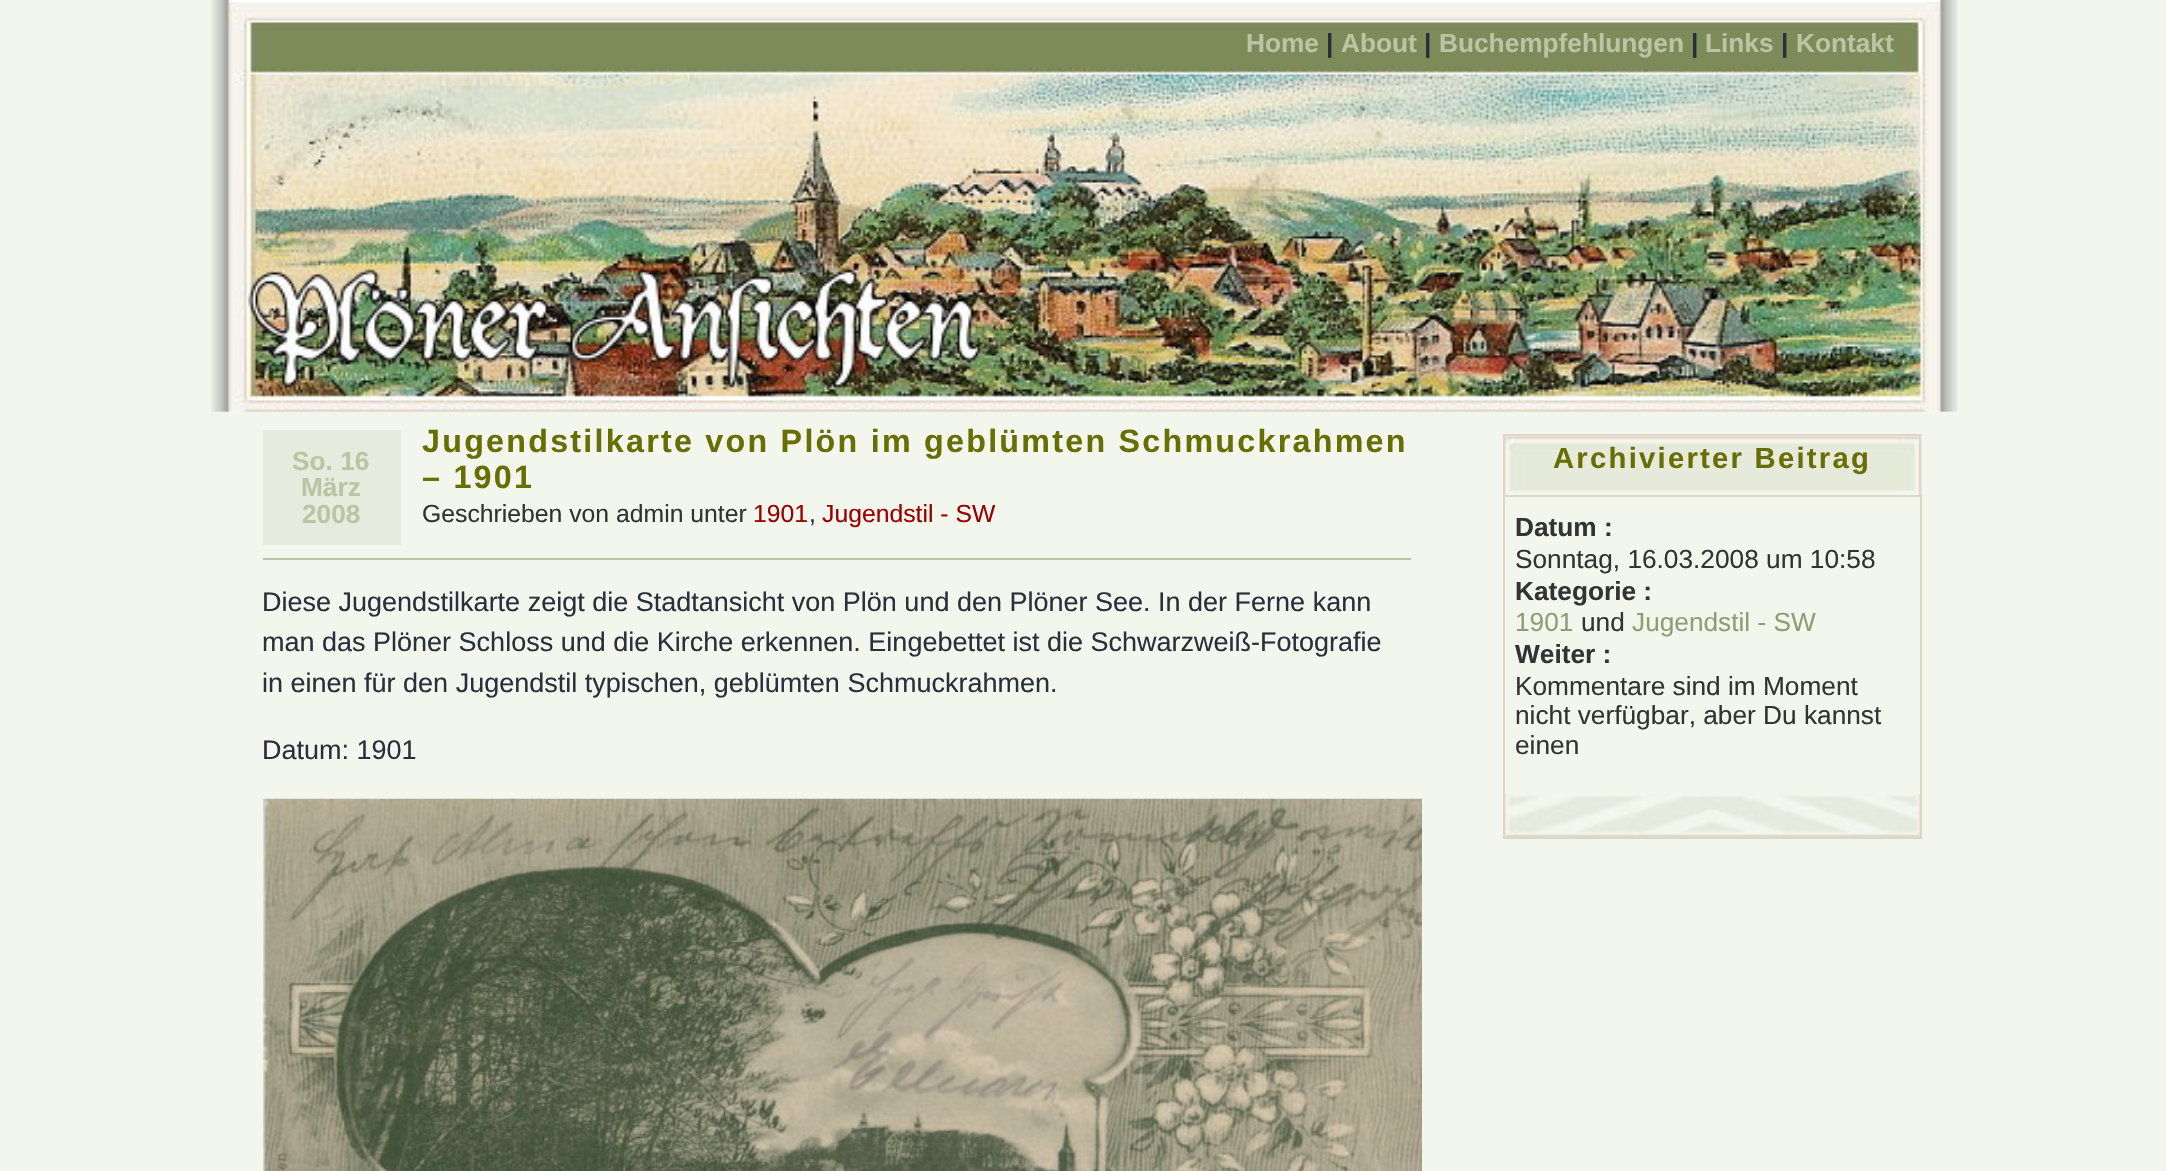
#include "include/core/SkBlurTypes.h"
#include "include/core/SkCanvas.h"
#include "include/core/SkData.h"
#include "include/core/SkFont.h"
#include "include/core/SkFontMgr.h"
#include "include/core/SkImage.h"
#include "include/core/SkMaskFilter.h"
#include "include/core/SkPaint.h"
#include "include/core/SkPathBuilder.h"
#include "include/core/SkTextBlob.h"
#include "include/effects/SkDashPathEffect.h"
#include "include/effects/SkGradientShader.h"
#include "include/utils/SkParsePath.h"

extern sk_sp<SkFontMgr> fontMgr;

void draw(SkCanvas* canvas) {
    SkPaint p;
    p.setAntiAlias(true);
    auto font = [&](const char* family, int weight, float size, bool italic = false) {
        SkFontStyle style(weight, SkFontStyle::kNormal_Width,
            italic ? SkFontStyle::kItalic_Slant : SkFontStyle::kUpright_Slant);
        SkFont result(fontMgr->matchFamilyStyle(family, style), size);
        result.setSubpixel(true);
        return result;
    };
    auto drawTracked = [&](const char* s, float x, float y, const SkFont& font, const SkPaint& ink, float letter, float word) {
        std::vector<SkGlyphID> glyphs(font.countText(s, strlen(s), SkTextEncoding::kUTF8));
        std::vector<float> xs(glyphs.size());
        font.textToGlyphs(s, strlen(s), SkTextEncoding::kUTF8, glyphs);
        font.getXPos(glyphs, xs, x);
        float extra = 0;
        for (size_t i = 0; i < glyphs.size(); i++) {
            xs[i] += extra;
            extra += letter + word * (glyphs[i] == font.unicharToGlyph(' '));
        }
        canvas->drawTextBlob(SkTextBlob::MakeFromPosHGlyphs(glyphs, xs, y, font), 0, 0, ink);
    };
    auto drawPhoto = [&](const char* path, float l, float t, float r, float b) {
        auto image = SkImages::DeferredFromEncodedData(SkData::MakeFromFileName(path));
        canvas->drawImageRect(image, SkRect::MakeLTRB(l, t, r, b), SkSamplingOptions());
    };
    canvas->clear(0xFFF3F6ED);
    p.setColor(0xFFFFFFFF);
    canvas->drawRect(SkRect::MakeLTRB(212, 0, 1958, 412), p);
    drawPhoto("media/1.png", 211, 0, 1958, 412);
    canvas->drawRect(SkRect::MakeLTRB(230, 0, 1940, 412), p);
    drawPhoto("media/2.png", 229, 0, 1940, 412);
    auto font1 = font("Liberation Sans", 700, 26.25f);
    p.setColor(0xFFBBC4A3);
    canvas->drawString("Home", 1246, 52, font1, p);
    p.setColor(0xFF29303B);
    canvas->drawString("|", 1326, 52, font1, p);
    p.setColor(0xFFBBC4A3);
    canvas->drawString("About", 1341, 52, font1, p);
    p.setColor(0xFF29303B);
    canvas->drawString("|", 1424, 52, font1, p);
    p.setColor(0xFFBBC4A3);
    canvas->drawString("Buchempfehlungen", 1439, 52, font1, p);
    p.setColor(0xFF29303B);
    canvas->drawString("|", 1691, 52, font1, p);
    p.setColor(0xFFBBC4A3);
    canvas->drawString("Links", 1705, 52, font1, p);
    p.setColor(0xFF29303B);
    canvas->drawString("|", 1781, 52, font1, p);
    p.setColor(0xFFBBC4A3);
    canvas->drawString("Kontakt", 1796, 52, font1, p);
    p.setColor(0xFFE7EBDE);
    canvas->drawRect(SkRect::MakeLTRB(263, 430, 401, 545), p);
    p.setColor(0xFFBBC4A3);
    {
        const struct { const char* s; float x, y; } items[] = {
            {"So. 16", 292, 470},
            {"März", 301, 496},
            {"2008", 302, 523},
        };
        for (auto [s, x, y] : items) {
            canvas->drawString(s, x, y, font1, p);
        }
    }
    auto font2 = font("Liberation Sans", 700, 32.25f);
    p.setColor(0xFF676E04);
    drawTracked("Jugendstilkarte von Plön im geblümten Schmuckrahmen", 422, 452, font2, p, 2.25f, 0);
    drawTracked("– 1901", 422, 488, font2, p, 2.25f, 0);
    auto font3 = font("Liberation Sans", 400, 24.75f);
    p.setColor(0xFF333333);
    canvas->drawString("Geschrieben von admin unter", 422, 522, font3, p);
    p.setColor(0xFF990000);
    canvas->drawString("1901", 753, 522, font3, p);
    p.setColor(0xFF333333);
    canvas->drawString(",", 809, 522, font3, p);
    p.setColor(0xFF990000);
    canvas->drawString("Jugendstil - SW", 822, 522, font3, p);
    p.setColor(0xFFBBC4A3);
    canvas->drawRect(SkRect::MakeLTRB(263, 558, 1411, 560), p);
    auto font4 = font("Liberation Sans", 400, 27);
    p.setColor(0xFF29303B);
    {
        const struct { const char* s; float x, y; } items[] = {
            {"Diese Jugendstilkarte zeigt die Stadtansicht von Plön und den Plöner See. In der Ferne kann", 262, 611},
            {"man das Plöner Schloss und die Kirche erkennen. Eingebettet ist die Schwarzweiß-Fotografie", 262, 651},
            {"in einen für den Jugendstil typischen, geblümten Schmuckrahmen.", 262, 692},
            {"Datum: 1901", 262, 759},
        };
        for (auto [s, x, y] : items) {
            canvas->drawString(s, x, y, font4, p);
        }
    }
    drawPhoto("media/3.png", 263, 798, 1422, 1171);
    drawPhoto("media/4.png", 1505, 436, 1922, 495);
    {
        const struct { float l, t, r, b; SkColor color; } items[] = {
            {1503, 434, 1922, 436, 0xFFE1D6C6},
            {1919, 434, 1921, 495, 0xFFE1D6C6},
            {1503, 434, 1505, 495, 0xFFE1D6C6},
        };
        for (auto [l, t, r, b, color] : items) {
            p.setColor(color);
            canvas->drawRect(SkRect::MakeLTRB(l, t, r, b), p);
        }
    }
    auto font5 = font("Liberation Sans", 700, 29.25f);
    p.setColor(0xFF676E04);
    drawTracked("Archivierter Beitrag", 1553, 468, font5, p, 2.25f, 0);
    drawPhoto("media/5.png", 1505, 794, 1920, 837);
    p.setStyle(SkPaint::kStroke_Style);
    p.setStrokeWidth(2);
    p.setColor(0xFFE1D6C6);
    canvas->drawRect(SkRect::MakeLTRB(1504, 496, 1921, 838), p);
    p.setStyle(SkPaint::kFill_Style);
    p.setColor(0xFF333333);
    canvas->drawString("Datum :", 1515, 536, font1, p);
    auto font6 = font("Liberation Sans", 400, 26.25f);
    canvas->drawString("Sonntag, 16.03.2008 um 10:58", 1515, 568, font6, p);
    canvas->drawString("Kategorie :", 1515, 600, font1, p);
    p.setColor(0xFF909D73);
    canvas->drawString("1901", 1515, 631, font6, p);
    p.setColor(0xFF333333);
    canvas->drawString("und", 1581, 631, font6, p);
    p.setColor(0xFF909D73);
    canvas->drawString("Jugendstil - SW", 1632, 631, font6, p);
    p.setColor(0xFF333333);
    canvas->drawString("Weiter :", 1515, 663, font1, p);
    {
        const struct { const char* s; float x, y; } items[] = {
            {"Kommentare sind im Moment", 1515, 695},
            {"nicht verfügbar, aber Du kannst", 1515, 724},
            {"einen", 1515, 754},
        };
        for (auto [s, x, y] : items) {
            canvas->drawString(s, x, y, font6, p);
        }
    }
}
